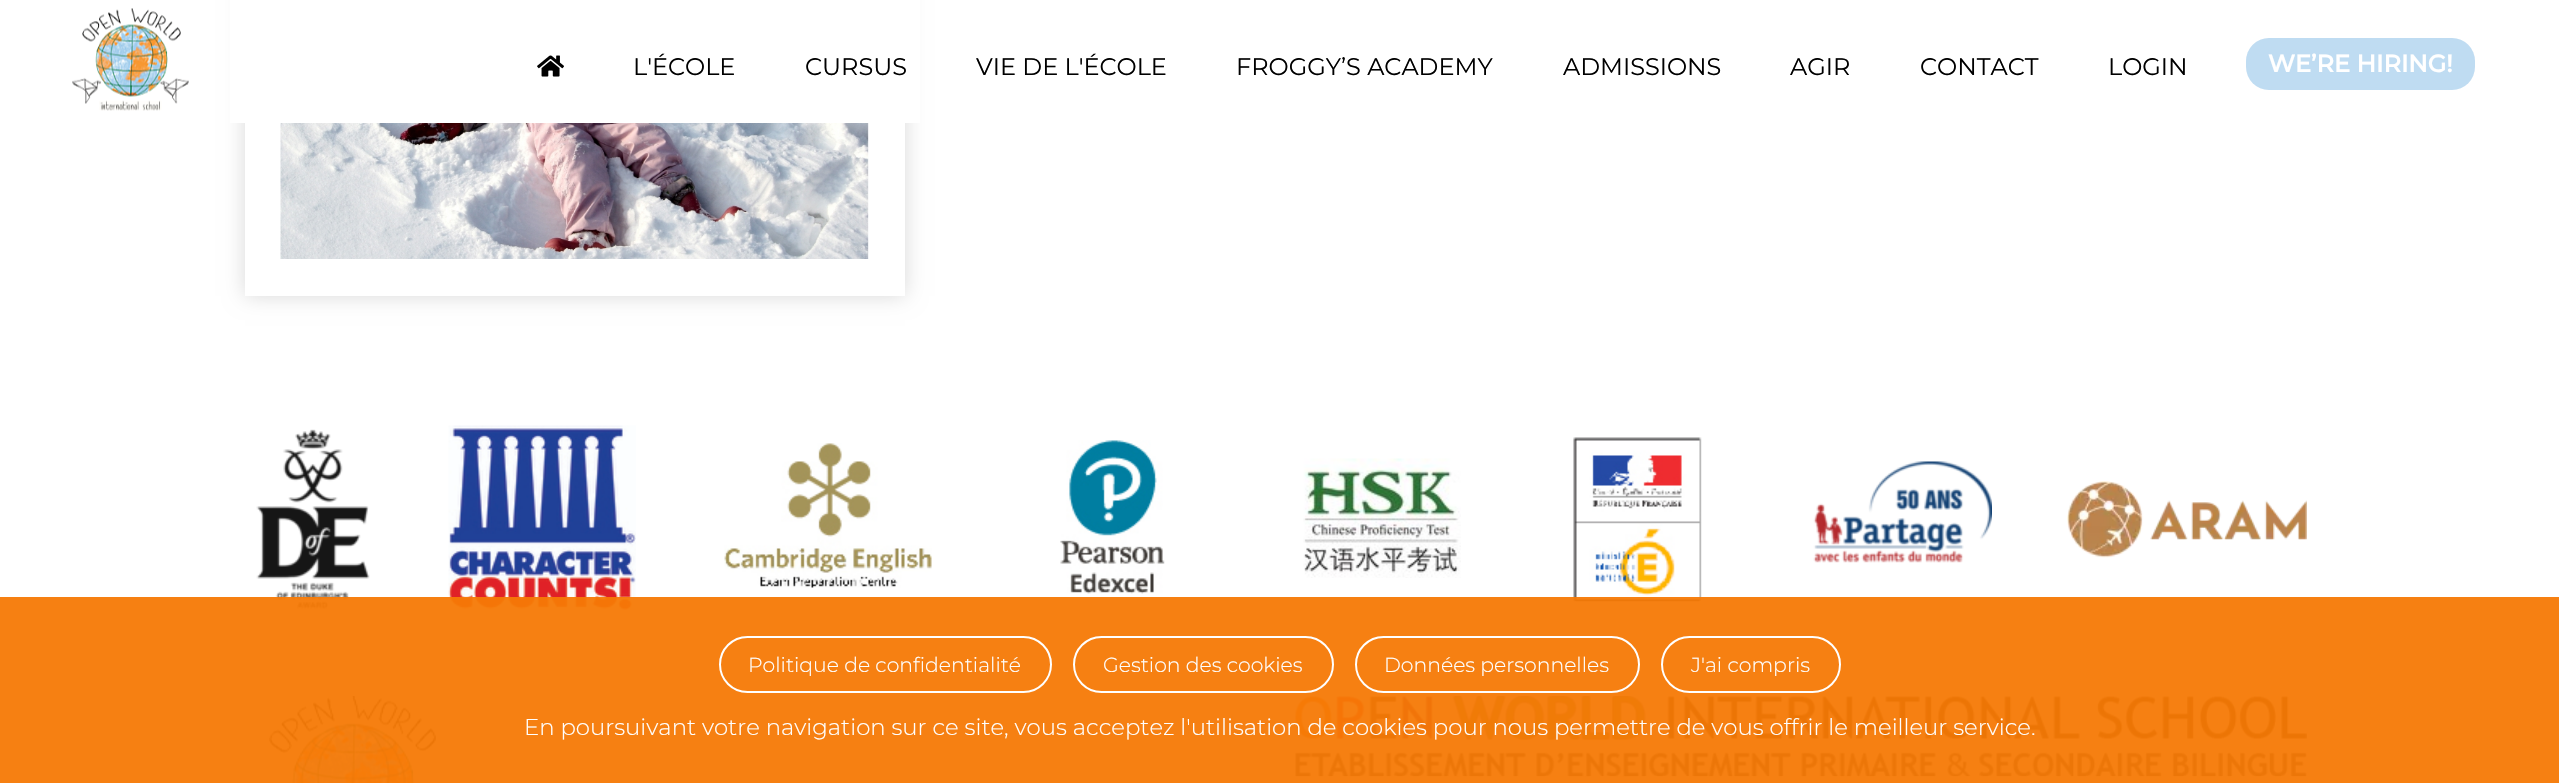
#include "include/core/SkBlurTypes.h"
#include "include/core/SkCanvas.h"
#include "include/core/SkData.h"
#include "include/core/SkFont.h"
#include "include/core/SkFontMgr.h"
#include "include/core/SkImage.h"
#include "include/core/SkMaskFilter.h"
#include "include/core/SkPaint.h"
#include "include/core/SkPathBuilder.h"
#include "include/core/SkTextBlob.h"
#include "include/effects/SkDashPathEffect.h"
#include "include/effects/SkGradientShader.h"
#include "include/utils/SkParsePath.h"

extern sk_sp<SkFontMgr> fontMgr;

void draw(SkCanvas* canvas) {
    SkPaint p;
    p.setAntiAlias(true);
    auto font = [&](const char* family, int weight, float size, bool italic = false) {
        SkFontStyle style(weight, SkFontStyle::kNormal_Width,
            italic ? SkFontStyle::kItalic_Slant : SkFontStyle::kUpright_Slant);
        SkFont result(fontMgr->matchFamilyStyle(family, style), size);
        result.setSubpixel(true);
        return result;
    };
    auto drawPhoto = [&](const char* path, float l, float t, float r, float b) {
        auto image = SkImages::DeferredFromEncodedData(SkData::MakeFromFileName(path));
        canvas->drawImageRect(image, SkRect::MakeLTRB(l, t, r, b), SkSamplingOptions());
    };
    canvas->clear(0xFFFFFFFF);
    p.setColor(0x26000000);
    p.setMaskFilter(SkMaskFilter::MakeBlur(kNormal_SkBlurStyle, 10));
    canvas->drawRect(SkRect::MakeLTRB(245, -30, 905, 296), p);
    p.setMaskFilter(nullptr);
    p.setColor(0xFFFFFFFF);
    canvas->drawRect(SkRect::MakeLTRB(245, 123, 905, 296), p);
    drawPhoto("media/1.png", 280, 123, 869, 259);
    canvas->drawRect(SkRect::MakeLTRB(230, 0, 920, 123), p);
    drawPhoto("media/2.png", 72, 8, 189, 111);
    drawPhoto("media/3.png", 537, 55, 564, 77);
    auto font1 = font("Montserrat", 400, 24);
    p.setColor(0xFF000000);
    {
        const struct { const char* s; float x, y; } items[] = {
            {"L'ÉCOLE", 633, 75},
            {"CURSUS", 805, 75},
            {"VIE DE L'ÉCOLE", 976, 75},
            {"FROGGY’S ACADEMY", 1236, 75},
            {"ADMISSIONS", 1563, 75},
            {"AGIR", 1790, 75},
            {"CONTACT", 1920, 75},
            {"LOGIN", 2108, 75},
        };
        for (auto [s, x, y] : items) {
            canvas->drawString(s, x, y, font1, p);
        }
    }
    p.setColor(0xFFBFDCF2);
    canvas->drawRoundRect(SkRect::MakeLTRB(2246, 38, 2475, 90), 23, 23, p);
    auto font2 = font("Montserrat", 700, 24);
    p.setColor(0xFFFFFFFF);
    canvas->drawString("WE’RE HIRING!", 2268, 72, font2, p);
    drawPhoto("media/4.png", 256, 429, 370, 609);
    drawPhoto("media/5.png", 448, 425, 636, 613);
    drawPhoto("media/6.png", 724, 443, 932, 588);
    drawPhoto("media/7.png", 1060, 440, 1165, 594);
    drawPhoto("media/8.png", 1303, 458, 1461, 578);
    drawPhoto("media/9.png", 1573, 437, 1702, 602);
    drawPhoto("media/10.png", 1813, 461, 1992, 563);
    drawPhoto("media/11.png", 2067, 481, 2307, 558);
    drawPhoto("media/12.png", 268, 696, 436, 783);
    drawPhoto("media/13.png", 1295, 696, 2307, 777);
    p.setColor(0xF2F57905);
    canvas->drawRect(SkRect::MakeLTRB(0, 597, 2559, 783), p);
    p.setStyle(SkPaint::kStroke_Style);
    p.setStrokeWidth(2);
    p.setColor(0xFFFFFFFF);
    canvas->drawRoundRect(SkRect::MakeLTRB(720, 637, 1051, 692), 27.5f, 27.5f, p);
    auto font3 = font("Montserrat", 300, 20.4f);
    p.setStyle(SkPaint::kFill_Style);
    canvas->drawString("Politique de confidentialité", 748, 672, font3, p);
    p.setStyle(SkPaint::kStroke_Style);
    canvas->drawRoundRect(SkRect::MakeLTRB(1074, 637, 1333, 692), 27.5f, 27.5f, p);
    p.setStyle(SkPaint::kFill_Style);
    canvas->drawString("Gestion des cookies", 1103, 672, font3, p);
    p.setStyle(SkPaint::kStroke_Style);
    canvas->drawRoundRect(SkRect::MakeLTRB(1356, 637, 1639, 692), 27.5f, 27.5f, p);
    p.setStyle(SkPaint::kFill_Style);
    canvas->drawString("Données personnelles", 1384, 672, font3, p);
    p.setStyle(SkPaint::kStroke_Style);
    canvas->drawRoundRect(SkRect::MakeLTRB(1662, 637, 1840, 692), 27.5f, 27.5f, p);
    p.setStyle(SkPaint::kFill_Style);
    canvas->drawString("J'ai compris", 1691, 672, font3, p);
    auto font4 = font("Montserrat", 300, 22.8f);
    canvas->drawString("En poursuivant votre navigation sur ce site, vous acceptez l'utilisation de cookies pour nous permettre de vous offrir le meilleur service.", 524, 735, font4, p);
}
